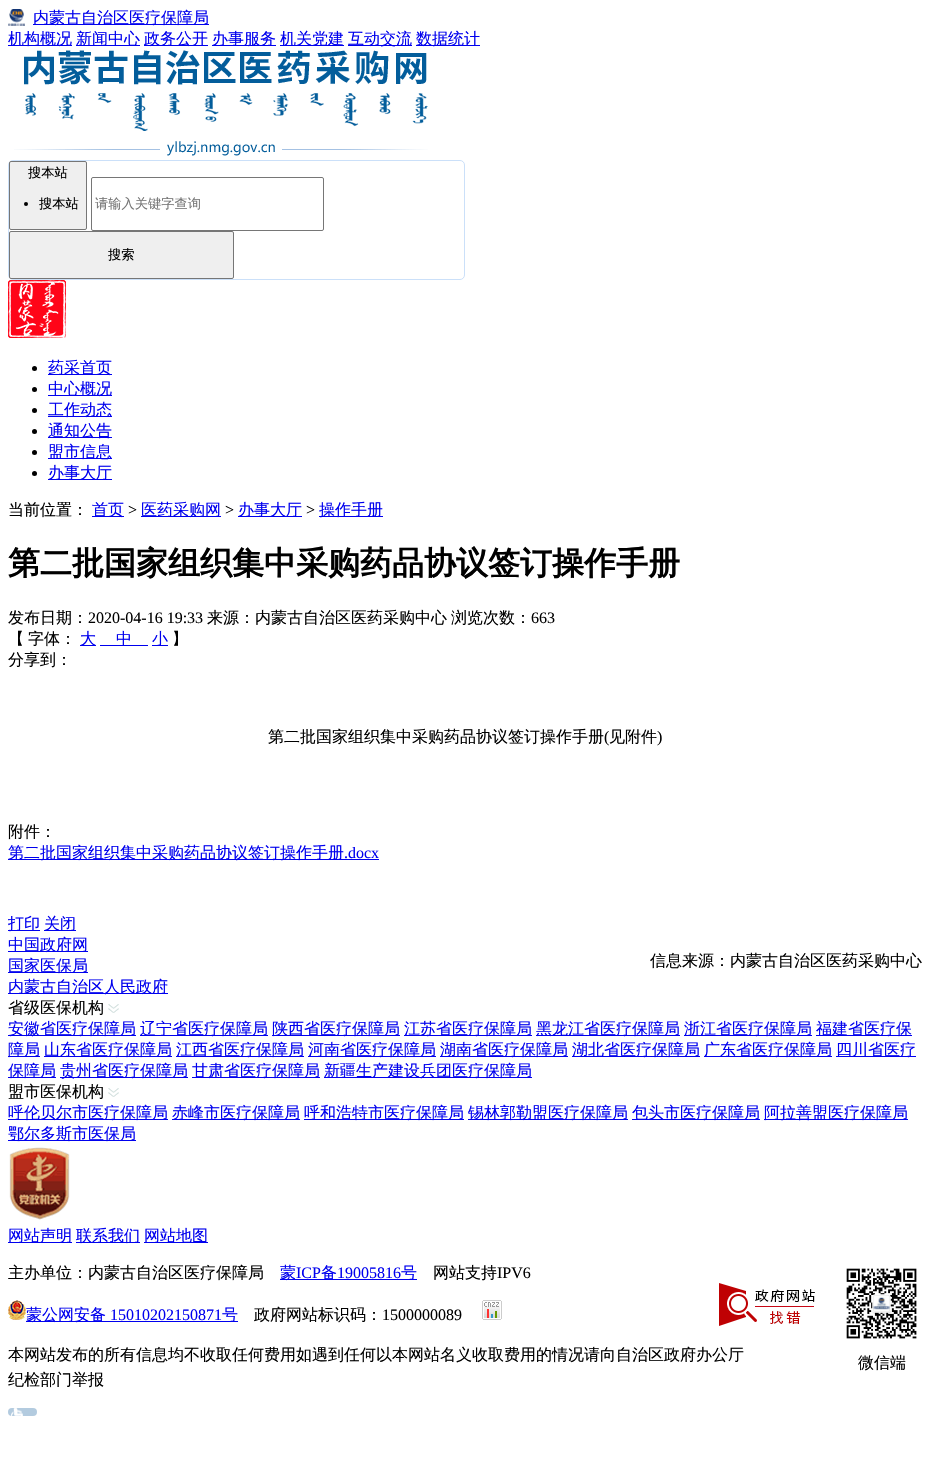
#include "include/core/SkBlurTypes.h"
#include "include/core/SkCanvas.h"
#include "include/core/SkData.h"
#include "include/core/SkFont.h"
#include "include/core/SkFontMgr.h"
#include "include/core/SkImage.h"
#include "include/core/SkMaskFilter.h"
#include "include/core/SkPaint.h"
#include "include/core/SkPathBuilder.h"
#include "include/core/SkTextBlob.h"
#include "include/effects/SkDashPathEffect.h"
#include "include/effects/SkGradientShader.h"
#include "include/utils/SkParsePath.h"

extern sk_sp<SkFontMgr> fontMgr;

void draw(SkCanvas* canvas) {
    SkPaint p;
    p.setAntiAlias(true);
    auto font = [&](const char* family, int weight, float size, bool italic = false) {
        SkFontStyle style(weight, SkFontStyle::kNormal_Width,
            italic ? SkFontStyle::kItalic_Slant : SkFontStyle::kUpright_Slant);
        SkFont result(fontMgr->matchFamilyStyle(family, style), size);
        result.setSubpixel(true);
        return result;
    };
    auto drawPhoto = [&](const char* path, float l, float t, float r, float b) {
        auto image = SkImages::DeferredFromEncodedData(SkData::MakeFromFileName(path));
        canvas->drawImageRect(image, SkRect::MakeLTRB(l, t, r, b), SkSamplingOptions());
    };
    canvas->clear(0xFFFFFFFF);
    drawPhoto("media/1.png", 8, 9, 25, 26);
    p.setColor(0xFF0000EE);
    canvas->drawRect(SkRect::MakeLTRB(33, 24, 209, 25), p);
    auto font1 = font("WenQuanYi Zen Hei", 500, 16);
    canvas->drawString("内蒙古自治区医疗保障局", 33, 23, font1, p);
    canvas->drawRect(SkRect::MakeLTRB(8, 45, 72, 46), p);
    canvas->drawString("机构概况", 8, 44, font1, p);
    canvas->drawRect(SkRect::MakeLTRB(76, 45, 140, 46), p);
    canvas->drawString("新闻中心", 76, 44, font1, p);
    canvas->drawRect(SkRect::MakeLTRB(144, 45, 208, 46), p);
    canvas->drawString("政务公开", 144, 44, font1, p);
    canvas->drawRect(SkRect::MakeLTRB(212, 45, 276, 46), p);
    canvas->drawString("办事服务", 212, 44, font1, p);
    canvas->drawRect(SkRect::MakeLTRB(280, 45, 344, 46), p);
    canvas->drawString("机关党建", 280, 44, font1, p);
    canvas->drawRect(SkRect::MakeLTRB(348, 45, 412, 46), p);
    canvas->drawString("互动交流", 348, 44, font1, p);
    canvas->drawRect(SkRect::MakeLTRB(416, 45, 480, 46), p);
    canvas->drawString("数据统计", 416, 44, font1, p);
    drawPhoto("media/2.png", 14, 50, 428, 156);
    p.setStyle(SkPaint::kStroke_Style);
    p.setStrokeWidth(1);
    p.setColor(0xFFCBE0F9);
    canvas->drawRoundRect(SkRect::MakeLTRB(8.5f, 160.5f, 464.5f, 279.5f), 4.5f, 4.5f, p);
    p.setStyle(SkPaint::kFill_Style);
    p.setColor(0xFFEFEFEF);
    canvas->drawRoundRect(SkRect::MakeLTRB(9.5f, 161.5f, 86.5f, 229.5f), 1.5f, 1.5f, p);
    p.setStyle(SkPaint::kStroke_Style);
    p.setColor(0xFF767676);
    canvas->drawRoundRect(SkRect::MakeLTRB(9.5f, 161.5f, 86.5f, 229.5f), 1.5f, 1.5f, p);
    auto font2 = font("WenQuanYi Zen Hei", 500, 13.25f);
    p.setStyle(SkPaint::kFill_Style);
    p.setColor(0xFF000000);
    canvas->drawString("搜本站", 28, 177, font2, p);
    canvas->drawCircle(26, 204, 2, p);
    canvas->drawString("搜本站", 39, 208, font2, p);
    p.setStyle(SkPaint::kStroke_Style);
    p.setColor(0xFF767676);
    canvas->drawRoundRect(SkRect::MakeLTRB(91.5f, 177.5f, 323.5f, 230.5f), 1.5f, 1.5f, p);
    p.setStyle(SkPaint::kFill_Style);
    p.setColor(0xFF757575);
    canvas->drawString("请输入关键字查询", 95, 208, font2, p);
    p.setColor(0xFFEFEFEF);
    canvas->drawRoundRect(SkRect::MakeLTRB(9.5f, 231.5f, 233.5f, 278.5f), 1.5f, 1.5f, p);
    p.setStyle(SkPaint::kStroke_Style);
    p.setColor(0xFF767676);
    canvas->drawRoundRect(SkRect::MakeLTRB(9.5f, 231.5f, 233.5f, 278.5f), 1.5f, 1.5f, p);
    p.setStyle(SkPaint::kFill_Style);
    p.setColor(0xFF000000);
    canvas->drawString("搜索", 108, 259, font2, p);
    drawPhoto("media/3.png", 8, 280, 66, 338);
    canvas->drawCircle(34.5f, 368.5f, 2.5f, p);
    p.setColor(0xFF0000EE);
    canvas->drawRect(SkRect::MakeLTRB(48, 374, 112, 375), p);
    canvas->drawString("药采首页", 48, 373, font1, p);
    p.setColor(0xFF000000);
    canvas->drawCircle(34.5f, 389.5f, 2.5f, p);
    p.setColor(0xFF0000EE);
    canvas->drawRect(SkRect::MakeLTRB(48, 395, 112, 396), p);
    canvas->drawString("中心概况", 48, 394, font1, p);
    p.setColor(0xFF000000);
    canvas->drawCircle(34.5f, 410.5f, 2.5f, p);
    p.setColor(0xFF0000EE);
    canvas->drawRect(SkRect::MakeLTRB(48, 416, 112, 417), p);
    canvas->drawString("工作动态", 48, 415, font1, p);
    p.setColor(0xFF000000);
    canvas->drawCircle(34.5f, 431.5f, 2.5f, p);
    p.setColor(0xFF0000EE);
    canvas->drawRect(SkRect::MakeLTRB(48, 437, 112, 438), p);
    canvas->drawString("通知公告", 48, 436, font1, p);
    p.setColor(0xFF000000);
    canvas->drawCircle(34.5f, 452.5f, 2.5f, p);
    p.setColor(0xFF0000EE);
    canvas->drawRect(SkRect::MakeLTRB(48, 458, 112, 459), p);
    canvas->drawString("盟市信息", 48, 457, font1, p);
    p.setColor(0xFF000000);
    canvas->drawCircle(34.5f, 473.5f, 2.5f, p);
    p.setColor(0xFF0000EE);
    canvas->drawRect(SkRect::MakeLTRB(48, 479, 112, 480), p);
    canvas->drawString("办事大厅", 48, 478, font1, p);
    p.setColor(0xFF000000);
    canvas->drawString("当前位置：", 8, 515, font1, p);
    p.setColor(0xFF0000EE);
    canvas->drawRect(SkRect::MakeLTRB(92, 516, 124, 517), p);
    canvas->drawString("首页", 92, 515, font1, p);
    auto font3 = font("Liberation Serif", 400, 16);
    p.setColor(0xFF000000);
    canvas->drawString(">", 128, 515, font3, p);
    p.setColor(0xFF0000EE);
    canvas->drawRect(SkRect::MakeLTRB(141, 516, 221, 517), p);
    canvas->drawString("医药采购网", 141, 515, font1, p);
    p.setColor(0xFF000000);
    canvas->drawString(">", 225, 515, font3, p);
    p.setColor(0xFF0000EE);
    canvas->drawRect(SkRect::MakeLTRB(238, 516, 302, 517), p);
    canvas->drawString("办事大厅", 238, 515, font1, p);
    p.setColor(0xFF000000);
    canvas->drawString(">", 306, 515, font3, p);
    p.setColor(0xFF0000EE);
    canvas->drawRect(SkRect::MakeLTRB(319, 516, 383, 517), p);
    canvas->drawString("操作手册", 319, 515, font1, p);
    auto font4 = font("WenQuanYi Zen Hei", 700, 32);
    p.setColor(0xFF000000);
    canvas->drawString("第二批国家组织集中采购药品协议签订操作手册", 8, 574, font4, p);
    canvas->drawString("发布日期：", 8, 623, font1, p);
    canvas->drawString("2020-04-16 19:33", 88, 623, font3, p);
    canvas->drawString("来源：内蒙古自治区医药采购中心", 207, 623, font1, p);
    canvas->drawString("浏览次数：", 451, 623, font1, p);
    canvas->drawString("663", 531, 623, font3, p);
    canvas->drawString("【", 8, 644, font1, p);
    canvas->drawString("字体：", 28, 644, font1, p);
    p.setColor(0xFF0000EE);
    canvas->drawRect(SkRect::MakeLTRB(80, 645, 96, 646), p);
    canvas->drawString("大", 80, 644, font1, p);
    canvas->drawRect(SkRect::MakeLTRB(100, 645, 148, 646), p);
    canvas->drawString("中", 116, 644, font1, p);
    canvas->drawRect(SkRect::MakeLTRB(152, 645, 168, 646), p);
    canvas->drawString("小", 152, 644, font1, p);
    p.setColor(0xFF000000);
    {
        const struct { const char* s; float x, y; } items[] = {
            {"】", 172, 644},
            {"分享到：", 8, 665},
            {"第二批国家组织集中采购药品协议签订操作手册", 268, 742},
        };
        for (auto [s, x, y] : items) {
            canvas->drawString(s, x, y, font1, p);
        }
    }
    canvas->drawString("(", 604, 742, font3, p);
    canvas->drawString("见附件", 609, 742, font1, p);
    canvas->drawString(")", 657, 742, font3, p);
    canvas->drawString("附件：", 8, 837, font1, p);
    p.setColor(0xFF0000EE);
    canvas->drawRect(SkRect::MakeLTRB(8, 859, 379, 860), p);
    canvas->drawString("第二批国家组织集中采购药品协议签订操作手册", 8, 858, font1, p);
    canvas->drawString(".docx", 344, 858, font3, p);
    canvas->drawRect(SkRect::MakeLTRB(8, 930, 40, 931), p);
    canvas->drawString("打印", 8, 929, font1, p);
    canvas->drawRect(SkRect::MakeLTRB(44, 930, 76, 931), p);
    canvas->drawString("关闭", 44, 929, font1, p);
    p.setColor(0xFF000000);
    canvas->drawString("信息来源：内蒙古自治区医药采购中心", 650, 966, font1, p);
    p.setColor(0xFF0000EE);
    canvas->drawRect(SkRect::MakeLTRB(8, 951, 88, 952), p);
    canvas->drawString("中国政府网", 8, 950, font1, p);
    canvas->drawRect(SkRect::MakeLTRB(8, 972, 88, 973), p);
    canvas->drawString("国家医保局", 8, 971, font1, p);
    canvas->drawRect(SkRect::MakeLTRB(8, 993, 168, 994), p);
    canvas->drawString("内蒙古自治区人民政府", 8, 992, font1, p);
    p.setColor(0xFF000000);
    canvas->drawString("省级医保机构", 8, 1013, font1, p);
    drawPhoto("media/4.png", 108, 1004, 119, 1013);
    p.setColor(0xFF0000EE);
    canvas->drawRect(SkRect::MakeLTRB(8, 1035, 136, 1036), p);
    canvas->drawString("安徽省医疗保障局", 8, 1034, font1, p);
    canvas->drawRect(SkRect::MakeLTRB(140, 1035, 268, 1036), p);
    canvas->drawString("辽宁省医疗保障局", 140, 1034, font1, p);
    canvas->drawRect(SkRect::MakeLTRB(272, 1035, 400, 1036), p);
    canvas->drawString("陕西省医疗保障局", 272, 1034, font1, p);
    canvas->drawRect(SkRect::MakeLTRB(404, 1035, 532, 1036), p);
    canvas->drawString("江苏省医疗保障局", 404, 1034, font1, p);
    canvas->drawRect(SkRect::MakeLTRB(536, 1035, 680, 1036), p);
    canvas->drawString("黑龙江省医疗保障局", 536, 1034, font1, p);
    canvas->drawRect(SkRect::MakeLTRB(684, 1035, 812, 1036), p);
    canvas->drawString("浙江省医疗保障局", 684, 1034, font1, p);
    canvas->drawRect(SkRect::MakeLTRB(816, 1035, 912, 1036), p);
    canvas->drawString("福建省医疗保", 816, 1034, font1, p);
    canvas->drawRect(SkRect::MakeLTRB(8, 1056, 40, 1057), p);
    canvas->drawString("障局", 8, 1055, font1, p);
    canvas->drawRect(SkRect::MakeLTRB(44, 1056, 172, 1057), p);
    canvas->drawString("山东省医疗保障局", 44, 1055, font1, p);
    canvas->drawRect(SkRect::MakeLTRB(176, 1056, 304, 1057), p);
    canvas->drawString("江西省医疗保障局", 176, 1055, font1, p);
    canvas->drawRect(SkRect::MakeLTRB(308, 1056, 436, 1057), p);
    canvas->drawString("河南省医疗保障局", 308, 1055, font1, p);
    canvas->drawRect(SkRect::MakeLTRB(440, 1056, 568, 1057), p);
    canvas->drawString("湖南省医疗保障局", 440, 1055, font1, p);
    canvas->drawRect(SkRect::MakeLTRB(572, 1056, 700, 1057), p);
    canvas->drawString("湖北省医疗保障局", 572, 1055, font1, p);
    canvas->drawRect(SkRect::MakeLTRB(704, 1056, 832, 1057), p);
    canvas->drawString("广东省医疗保障局", 704, 1055, font1, p);
    canvas->drawRect(SkRect::MakeLTRB(836, 1056, 916, 1057), p);
    canvas->drawString("四川省医疗", 836, 1055, font1, p);
    canvas->drawRect(SkRect::MakeLTRB(8, 1077, 56, 1078), p);
    canvas->drawString("保障局", 8, 1076, font1, p);
    canvas->drawRect(SkRect::MakeLTRB(60, 1077, 188, 1078), p);
    canvas->drawString("贵州省医疗保障局", 60, 1076, font1, p);
    canvas->drawRect(SkRect::MakeLTRB(192, 1077, 320, 1078), p);
    canvas->drawString("甘肃省医疗保障局", 192, 1076, font1, p);
    canvas->drawRect(SkRect::MakeLTRB(324, 1077, 532, 1078), p);
    canvas->drawString("新疆生产建设兵团医疗保障局", 324, 1076, font1, p);
    p.setColor(0xFF000000);
    canvas->drawString("盟市医保机构", 8, 1097, font1, p);
    drawPhoto("media/4.png", 108, 1088, 119, 1097);
    p.setColor(0xFF0000EE);
    canvas->drawRect(SkRect::MakeLTRB(8, 1119, 168, 1120), p);
    canvas->drawString("呼伦贝尔市医疗保障局", 8, 1118, font1, p);
    canvas->drawRect(SkRect::MakeLTRB(172, 1119, 300, 1120), p);
    canvas->drawString("赤峰市医疗保障局", 172, 1118, font1, p);
    canvas->drawRect(SkRect::MakeLTRB(304, 1119, 464, 1120), p);
    canvas->drawString("呼和浩特市医疗保障局", 304, 1118, font1, p);
    canvas->drawRect(SkRect::MakeLTRB(468, 1119, 628, 1120), p);
    canvas->drawString("锡林郭勒盟医疗保障局", 468, 1118, font1, p);
    canvas->drawRect(SkRect::MakeLTRB(632, 1119, 760, 1120), p);
    canvas->drawString("包头市医疗保障局", 632, 1118, font1, p);
    canvas->drawRect(SkRect::MakeLTRB(764, 1119, 908, 1120), p);
    canvas->drawString("阿拉善盟医疗保障局", 764, 1118, font1, p);
    canvas->drawRect(SkRect::MakeLTRB(8, 1140, 136, 1141), p);
    canvas->drawString("鄂尔多斯市医保局", 8, 1139, font1, p);
    drawPhoto("media/5.png", 9, 1147, 70, 1220);
    canvas->drawRect(SkRect::MakeLTRB(8, 1242, 72, 1243), p);
    canvas->drawString("网站声明", 8, 1241, font1, p);
    canvas->drawRect(SkRect::MakeLTRB(76, 1242, 140, 1243), p);
    canvas->drawString("联系我们", 76, 1241, font1, p);
    canvas->drawRect(SkRect::MakeLTRB(144, 1242, 208, 1243), p);
    canvas->drawString("网站地图", 144, 1241, font1, p);
    p.setColor(0xFF000000);
    canvas->drawString("主办单位：内蒙古自治区医疗保障局", 8, 1278, font1, p);
    p.setColor(0xFF0000EE);
    canvas->drawRect(SkRect::MakeLTRB(280, 1279, 417, 1280), p);
    canvas->drawString("蒙", 280, 1278, font1, p);
    canvas->drawString("ICP", 296, 1278, font3, p);
    canvas->drawString("备", 321, 1278, font1, p);
    canvas->drawString("19005816", 337, 1278, font3, p);
    canvas->drawString("号", 401, 1278, font1, p);
    p.setColor(0xFF000000);
    canvas->drawString("网站支持", 433, 1278, font1, p);
    canvas->drawString("IPV6", 497, 1278, font3, p);
    drawPhoto("media/6.png", 8, 1300, 26, 1320);
    p.setColor(0xFF0000EE);
    canvas->drawRect(SkRect::MakeLTRB(26, 1321, 238, 1322), p);
    canvas->drawString("蒙公网安备", 26, 1320, font1, p);
    canvas->drawString("15010202150871", 110, 1320, font3, p);
    canvas->drawString("号", 222, 1320, font1, p);
    p.setColor(0xFF000000);
    canvas->drawString("政府网站标识码：", 254, 1320, font1, p);
    canvas->drawString("1500000089", 382, 1320, font3, p);
    drawPhoto("media/7.png", 482, 1300, 502, 1320);
    drawPhoto("media/8.png", 719, 1283, 815, 1326);
    canvas->drawString("本网站发布的所有信息均不收取任何费用如遇到任何以本网站名义收取费用的情况请向自治区政府办公厅", 8, 1360, font1, p);
    canvas->drawString("纪检部门举报", 8, 1385, font1, p);
    drawPhoto("media/9.png", 846, 1268, 917, 1339);
    canvas->drawString("微信端", 858, 1368, font1, p);
    p.setColor(0xFFB3CBDF);
    canvas->drawRoundRect(SkRect::MakeLTRB(8, 1408, 37, 1416), 4, 4, p);
    drawPhoto("media/10.png", 11, 1408, 23, 1416);
}
